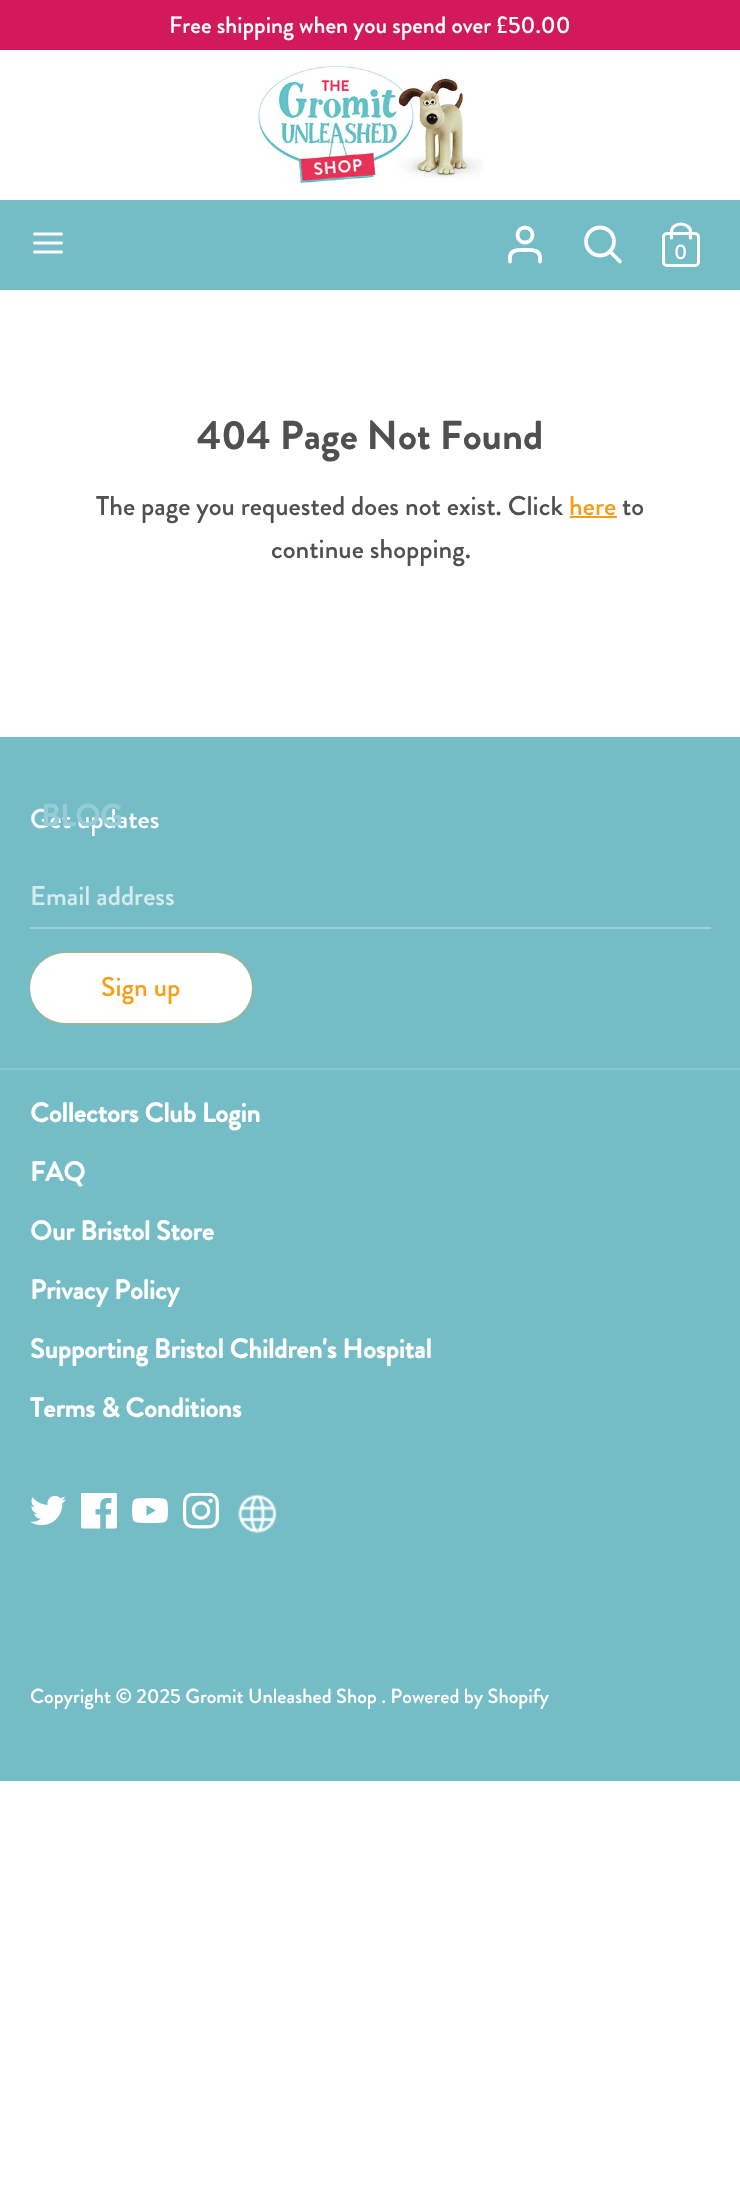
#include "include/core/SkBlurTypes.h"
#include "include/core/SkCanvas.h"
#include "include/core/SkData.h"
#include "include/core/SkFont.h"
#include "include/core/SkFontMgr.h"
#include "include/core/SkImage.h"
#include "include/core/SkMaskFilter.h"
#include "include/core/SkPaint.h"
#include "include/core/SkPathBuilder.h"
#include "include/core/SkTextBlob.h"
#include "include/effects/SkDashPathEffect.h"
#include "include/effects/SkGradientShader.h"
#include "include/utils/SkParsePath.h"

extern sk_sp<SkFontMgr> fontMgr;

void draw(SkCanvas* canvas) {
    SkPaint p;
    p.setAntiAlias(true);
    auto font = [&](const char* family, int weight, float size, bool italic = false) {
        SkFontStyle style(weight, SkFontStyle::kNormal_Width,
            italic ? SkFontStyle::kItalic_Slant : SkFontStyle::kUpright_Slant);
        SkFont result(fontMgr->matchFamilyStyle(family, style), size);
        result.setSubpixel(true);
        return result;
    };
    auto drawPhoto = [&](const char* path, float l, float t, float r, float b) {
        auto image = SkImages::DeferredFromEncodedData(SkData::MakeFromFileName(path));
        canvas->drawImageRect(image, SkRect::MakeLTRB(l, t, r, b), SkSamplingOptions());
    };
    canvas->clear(0xFFFFFFFF);
    p.setColor(0xFFD2195A);
    canvas->drawRect(SkRect::MakeLTRB(0, 0, 740, 50), p);
    auto font1 = font("Brandon Grotesque", 500, 23.6f);
    p.setColor(0xFFFFFFFF);
    canvas->drawString("Free shipping when you spend over £50.00", 169, 33, font1, p);
    drawPhoto("media/1.png", 257, 65, 484, 184);
    p.setColor(0xFF74BCC6);
    canvas->drawRect(SkRect::MakeLTRB(0, 200, 740, 290), p);
    p.setStyle(SkPaint::kStroke_Style);
    p.setStrokeWidth(3);
    p.setStrokeCap(SkPaint::kRound_Cap);
    p.setColor(0xFFFFFFFF);
    canvas->drawPath(SkPathBuilder().moveTo(34.5f, 243).lineTo(61.5f, 243).moveTo(34.5f, 234).lineTo(61.5f, 234).moveTo(34.5f, 252).lineTo(61.5f, 252).detach(), p);
    p.setStrokeWidth(3.8f);
    canvas->drawPath(SkPathBuilder().moveTo(540, 261.5f).lineTo(540, 256).cubicTo(538.5f, 249, 530.5f, 250, 525, 250).cubicTo(519.5f, 250, 511.5f, 249, 510, 256).lineTo(510, 261.5f).detach(), p);
    p.setStrokeCap(SkPaint::kButt_Cap);
    canvas->drawCircle(525, 235, 7.5f, p);
    canvas->drawCircle(600, 241.5f, 14, p);
    p.setStrokeCap(SkPaint::kRound_Cap);
    canvas->drawPath(SkPathBuilder().moveTo(620, 261.5f).lineTo(610, 251.5f).detach(), p);
    p.setStrokeWidth(3);
    p.setStrokeCap(SkPaint::kButt_Cap);
    canvas->drawRoundRect(SkRect::MakeLTRB(663.5f, 233.5f, 698.5f, 265.5f), 3.5f, 3.5f, p);
    p.setStrokeWidth(3.2f);
    p.setStrokeCap(SkPaint::kRound_Cap);
    canvas->drawPath(SkPathBuilder().moveTo(671.5f, 238).lineTo(671.5f, 231.5f).cubicTo(671.5f, 227.5f, 675.5f, 224, 681, 224).cubicTo(686, 224, 690.5f, 227.5f, 690.5f, 231.5f).lineTo(690.5f, 238).detach(), p);
    auto font2 = font("Brandon Grotesque", 500, 21);
    p.setStyle(SkPaint::kFill_Style);
    canvas->drawString("0", 674, 259, font2, p);
    p.setColor(0xFF74BCC6);
    canvas->drawRect(SkRect::MakeLTRB(0, 737, 740, 1781), p);
    auto font3 = font("Brandon Grotesque", 500, 27);
    p.setColor(0xFFFFFFFF);
    canvas->drawString("Get updates", 30, 828, font3, p);
    auto font4 = font("Brandon Grotesque", 700, 30.5f);
    p.setColor(0xFF96CCD4);
    canvas->drawString("BLOG", 41, 826, font4, p);
    auto font5 = font("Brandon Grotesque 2", 700, 40.5f);
    p.setColor(0xFF505050);
    canvas->drawString("404 Page Not Found", 197, 449, font5, p);
    canvas->drawString("The page you requested does not exist. Click", 96, 515, font3, p);
    p.setColor(0xFFF59E18);
    canvas->drawString("here", 569, 515, font3, p);
    canvas->drawRect(SkRect::MakeLTRB(570, 516, 617, 518), p);
    p.setColor(0xFF505050);
    canvas->drawString("to", 622, 515, font3, p);
    canvas->drawString("continue shopping.", 271, 558, font3, p);
    p.setColor(0xFF9ED0D7);
    canvas->drawRect(SkRect::MakeLTRB(30, 927, 711, 929), p);
    p.setColor(0xFFD5EBEE);
    canvas->drawString("Email address", 30, 905, font3, p);
    p.setStyle(SkPaint::kStroke_Style);
    p.setStrokeWidth(2);
    p.setStrokeCap(SkPaint::kButt_Cap);
    p.setColor(0xFF94B59B);
    canvas->drawRoundRect(SkRect::MakeLTRB(30, 952, 253, 1024), 36, 36, p);
    p.setStyle(SkPaint::kFill_Style);
    p.setColor(0xFFFFFFFF);
    canvas->drawRoundRect(SkRect::MakeLTRB(30, 953, 252, 1023), 35, 35, p);
    p.setColor(0xFFF59E18);
    canvas->drawString("Sign up", 101, 996, font3, p);
    p.setColor(0xFF89C6CF);
    canvas->drawRect(SkRect::MakeLTRB(0, 1068, 740, 1070), p);
    auto font6 = font("Brandon Grotesque", 700, 27);
    p.setColor(0xFFFFFFFF);
    {
        const struct { const char* s; float x, y; } items[] = {
            {"Collectors Club Login", 30, 1122},
            {"FAQ", 30, 1181},
            {"Our Bristol Store", 30, 1240},
            {"Privacy Policy", 30, 1299},
            {"Supporting Bristol Children's Hospital", 30, 1358},
            {"Terms & Conditions", 30, 1417},
        };
        for (auto [s, x, y] : items) {
            canvas->drawString(s, x, y, font6, p);
        }
    }
    drawPhoto("media/2.png", 30, 1495, 66, 1526);
    drawPhoto("media/3.png", 81, 1493, 117, 1529);
    drawPhoto("media/4.png", 132, 1497, 168, 1524);
    drawPhoto("media/5.png", 183, 1493, 219, 1529);
    drawPhoto("media/6.png", 238, 1494, 277, 1534);
    auto font7 = font("Brandon Grotesque", 500, 20.25f);
    canvas->drawString("Copyright © 2025 Gromit Unleashed Shop . Powered by Shopify", 30, 1703, font7, p);
}
